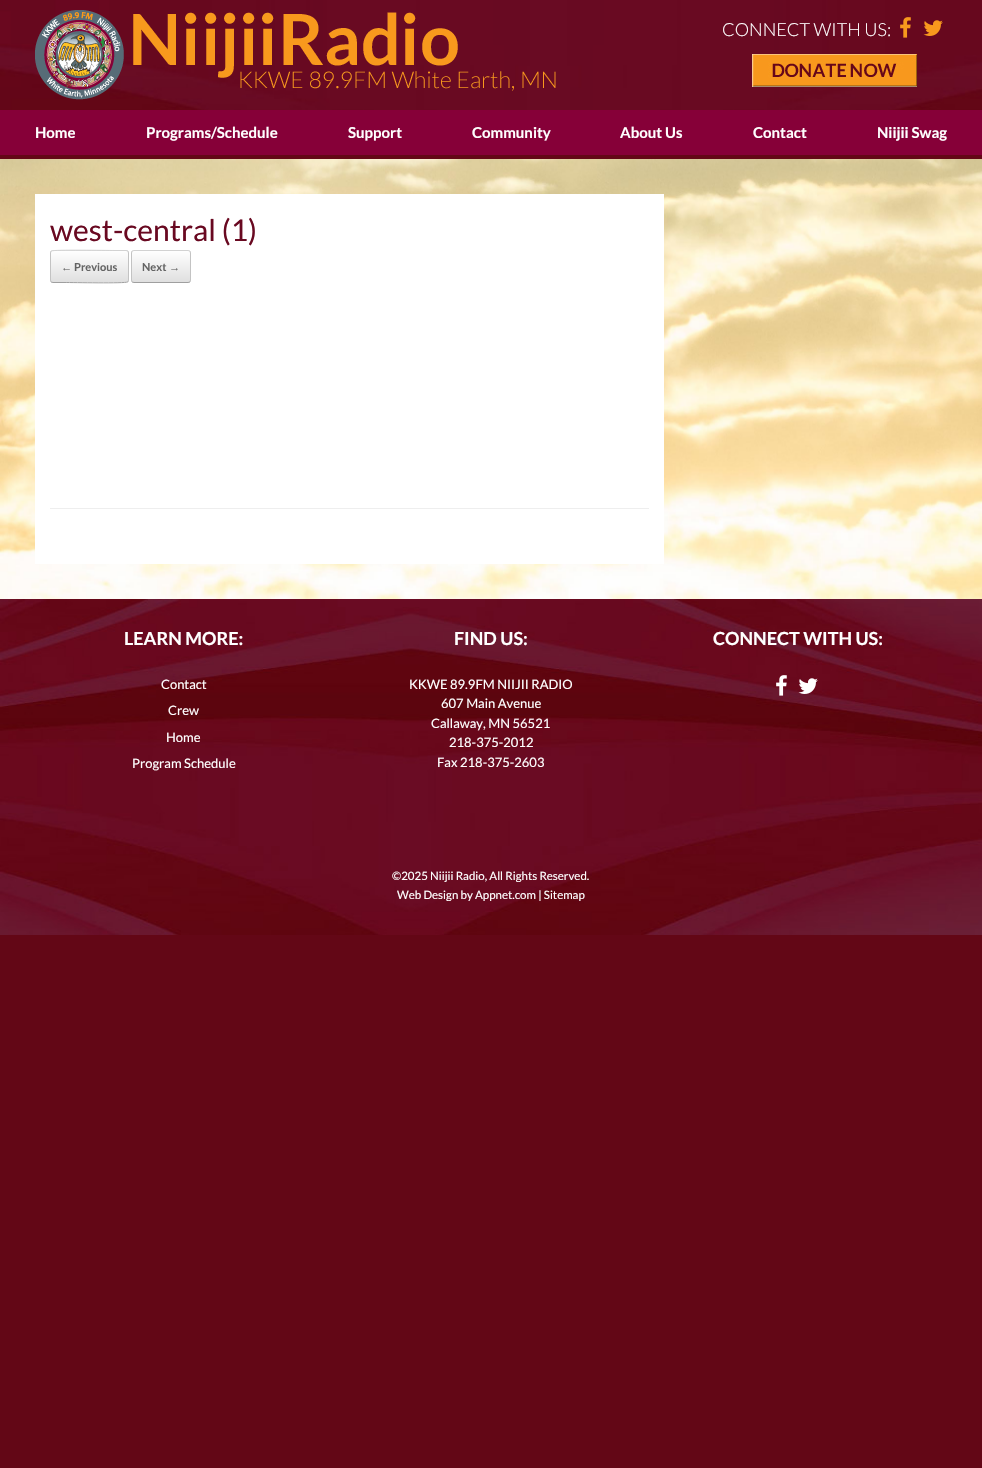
#include "include/core/SkBlurTypes.h"
#include "include/core/SkCanvas.h"
#include "include/core/SkData.h"
#include "include/core/SkFont.h"
#include "include/core/SkFontMgr.h"
#include "include/core/SkImage.h"
#include "include/core/SkMaskFilter.h"
#include "include/core/SkPaint.h"
#include "include/core/SkPathBuilder.h"
#include "include/core/SkTextBlob.h"
#include "include/effects/SkDashPathEffect.h"
#include "include/effects/SkGradientShader.h"
#include "include/utils/SkParsePath.h"

extern sk_sp<SkFontMgr> fontMgr;

void draw(SkCanvas* canvas) {
    SkPaint p;
    p.setAntiAlias(true);
    auto font = [&](const char* family, int weight, float size, bool italic = false) {
        SkFontStyle style(weight, SkFontStyle::kNormal_Width,
            italic ? SkFontStyle::kItalic_Slant : SkFontStyle::kUpright_Slant);
        SkFont result(fontMgr->matchFamilyStyle(family, style), size);
        result.setSubpixel(true);
        return result;
    };
    auto drawPhoto = [&](const char* path, float l, float t, float r, float b) {
        auto image = SkImages::DeferredFromEncodedData(SkData::MakeFromFileName(path));
        canvas->drawImageRect(image, SkRect::MakeLTRB(l, t, r, b), SkSamplingOptions());
    };
    canvas->clear(0xFF630716);
    drawPhoto("media/1.png", 0, 0, 982, 110);
    drawPhoto("media/2.png", 35, 10, 556, 100);
    auto font1 = font("Lato", 300, 18);
    p.setColor(0xFFFFFFFF);
    canvas->drawString("CONNECT WITH US:", 722, 36, font1, p);
    drawPhoto("media/3.png", 900, 17, 911, 38);
    drawPhoto("media/4.png", 923, 20, 943, 36);
    drawPhoto("media/5.png", 752, 54, 917, 87);
    p.setColor(0xFF860038);
    canvas->drawRect(SkRect::MakeLTRB(0, 110, 982, 155), p);
    auto font2 = font("Lato", 700, 15);
    p.setColor(0xFFFFFFFF);
    {
        const struct { const char* s; float x, y; } items[] = {
            {"Home", 35, 138},
            {"Programs/Schedule", 146, 138},
            {"Support", 348, 138},
            {"Community", 472, 138},
            {"About Us", 620, 138},
            {"Contact", 753, 138},
            {"Niijii Swag", 877, 138},
        };
        for (auto [s, x, y] : items) {
            canvas->drawString(s, x, y, font2, p);
        }
    }
    drawPhoto("media/6.png", 0, 159, 982, 599);
    canvas->drawRect(SkRect::MakeLTRB(35, 194, 664, 564), p);
    p.setColor(0xFFEEEEEE);
    canvas->drawRect(SkRect::MakeLTRB(50, 508, 649, 509), p);
    auto font3 = font("Lato", 400, 30);
    p.setColor(0xFF690921);
    canvas->drawString("west-central (1)", 50, 241, font3, p);
    canvas->save();
    canvas->clipPath(SkPathBuilder().moveTo(53, 250).lineTo(126, 250).cubicTo(127.5f, 250, 129, 251.5f, 129, 253).lineTo(129, 280).cubicTo(129, 281.5f, 127.5f, 283, 126, 283).lineTo(53, 283).cubicTo(51.5f, 283, 50, 281.5f, 50, 280).lineTo(50, 253).cubicTo(50, 251.5f, 51.5f, 250, 53, 250).close().detach(), true);
    {
        const SkColor colors[] = {0xFFDFDFDF, 0xFFFFFFFF};
        const float stops[] = {0, 1};
        const SkPoint ends[] = {{51, 251}, {51, 220}};
        p.setShader(SkGradientShader::MakeLinear(ends, colors, stops, 2, SkTileMode::kClamp));
        p.setAlpha(255);
    }
    canvas->drawRect(SkRect::MakeLTRB(50, 250, 129, 251), p);
    {
        const SkColor colors[] = {0xFFDFDFDF, 0xFFFFFFFF};
        const float stops[] = {0, 1};
        const SkPoint ends[] = {{51, 282}, {51, 251}};
        p.setShader(SkGradientShader::MakeLinear(ends, colors, stops, 2, SkTileMode::kClamp));
        p.setAlpha(255);
    }
    canvas->drawRect(SkRect::MakeLTRB(50, 251, 129, 282), p);
    canvas->restore();
    p.setStyle(SkPaint::kStroke_Style);
    p.setStrokeWidth(1);
    p.setShader(nullptr);
    p.setColor(0xFFD2D2D2);
    canvas->drawPath(SkPathBuilder().moveTo(51, 251).lineTo(51.5f, 251).cubicTo(53.5f, 249.5f, 107, 250.5f, 114, 250.5f).lineTo(126, 250.5f).lineTo(128, 251).detach(), p);
    p.setColor(0xFFC3C3C3);
    canvas->drawPath(SkPathBuilder().moveTo(128, 251).cubicTo(128, 251.5f, 128.5f, 252.5f, 128.5f, 253).lineTo(128.5f, 280).cubicTo(128.5f, 280.5f, 128, 281.5f, 128, 282).detach(), p);
    p.setColor(0xFF9F9F9F);
    canvas->drawPath(SkPathBuilder().moveTo(128, 282).lineTo(127.5f, 282).cubicTo(125.5f, 283.5f, 72, 282.5f, 65, 282.5f).lineTo(53, 282.5f).lineTo(51, 282).detach(), p);
    p.setColor(0xFFC3C3C3);
    canvas->drawPath(SkPathBuilder().moveTo(51, 282).cubicTo(51, 281.5f, 50.5f, 280.5f, 50.5f, 280).lineTo(50.5f, 253).cubicTo(50.5f, 252.5f, 51, 251.5f, 51, 251).detach(), p);
    auto font4 = font("Liberation Serif", 700, 11);
    p.setStyle(SkPaint::kFill_Style);
    p.setColor(0xFF646464);
    canvas->drawString("←", 61, 271, font4, p);
    auto font5 = font("Lato", 700, 11);
    canvas->drawString("Previous", 74, 271, font5, p);
    canvas->save();
    canvas->clipPath(SkPathBuilder().moveTo(134, 250).lineTo(188, 250).cubicTo(189.5f, 250, 191, 251.5f, 191, 253).lineTo(191, 280).cubicTo(191, 281.5f, 189.5f, 283, 188, 283).lineTo(134, 283).cubicTo(132.5f, 283, 131, 281.5f, 131, 280).lineTo(131, 253).cubicTo(131, 251.5f, 132.5f, 250, 134, 250).close().detach(), true);
    {
        const SkColor colors[] = {0xFFDFDFDF, 0xFFFFFFFF};
        const float stops[] = {0, 1};
        const SkPoint ends[] = {{132, 282}, {132, 251}};
        p.setShader(SkGradientShader::MakeLinear(ends, colors, stops, 2, SkTileMode::kClamp));
        p.setAlpha(255);
    }
    canvas->drawRect(SkRect::MakeLTRB(131, 251, 191, 282), p);
    canvas->restore();
    p.setStyle(SkPaint::kStroke_Style);
    p.setShader(nullptr);
    p.setColor(0xFFD2D2D2);
    canvas->drawPath(SkPathBuilder().moveTo(132, 251).lineTo(134, 250.5f).lineTo(188, 250.5f).lineTo(190, 251).detach(), p);
    p.setColor(0xFFC3C3C3);
    canvas->drawPath(SkPathBuilder().moveTo(190, 251).cubicTo(190, 251.5f, 190.5f, 252.5f, 190.5f, 253).lineTo(190.5f, 280).cubicTo(190.5f, 280.5f, 190, 281.5f, 190, 282).detach(), p);
    p.setColor(0xFF9F9F9F);
    canvas->drawPath(SkPathBuilder().moveTo(190, 282).lineTo(188, 282.5f).lineTo(134, 282.5f).lineTo(132, 282).detach(), p);
    p.setColor(0xFFC3C3C3);
    canvas->drawPath(SkPathBuilder().moveTo(132, 282).cubicTo(132, 281.5f, 131.5f, 280.5f, 131.5f, 280).lineTo(131.5f, 253).cubicTo(131.5f, 252.5f, 132, 251.5f, 132, 251).detach(), p);
    p.setStyle(SkPaint::kFill_Style);
    p.setColor(0xFF646464);
    canvas->drawString("Next", 142, 271, font5, p);
    canvas->drawString("→", 169, 271, font4, p);
    drawPhoto("media/7.png", 0, 599, 982, 935);
    auto font6 = font("Lato", 700, 18);
    p.setColor(0xFFFFFFFF);
    canvas->drawString("LEARN MORE:", 124, 645, font6, p);
    auto font7 = font("Lato", 400, 13);
    {
        const struct { const char* s; float x, y; } items[] = {
            {"Contact", 161, 689},
            {"Crew", 168, 715},
            {"Home", 166, 742},
            {"Program Schedule", 132, 768},
        };
        for (auto [s, x, y] : items) {
            canvas->drawString(s, x, y, font7, p);
        }
    }
    canvas->drawString("FIND US:", 454, 645, font6, p);
    {
        const struct { const char* s; float x, y; } items[] = {
            {"KKWE 89.9FM NIIJII RADIO", 409, 689},
            {"607 Main Avenue", 441, 708},
            {"Callaway, MN 56521", 431, 728},
            {"218-375-2012", 449, 747},
            {"Fax 218-375-2603", 437, 767},
        };
        for (auto [s, x, y] : items) {
            canvas->drawString(s, x, y, font7, p);
        }
    }
    canvas->drawString("CONNECT WITH US:", 713, 645, font6, p);
    drawPhoto("media/8.png", 776, 675, 787, 696);
    drawPhoto("media/9.png", 798, 678, 818, 694);
    auto font8 = font("Lato", 400, 11.5f);
    canvas->drawString("©2025 Niijii Radio, All Rights Reserved.", 392, 880, font8, p);
    canvas->drawString("Web Design by Appnet.com | Sitemap", 397, 899, font8, p);
}
